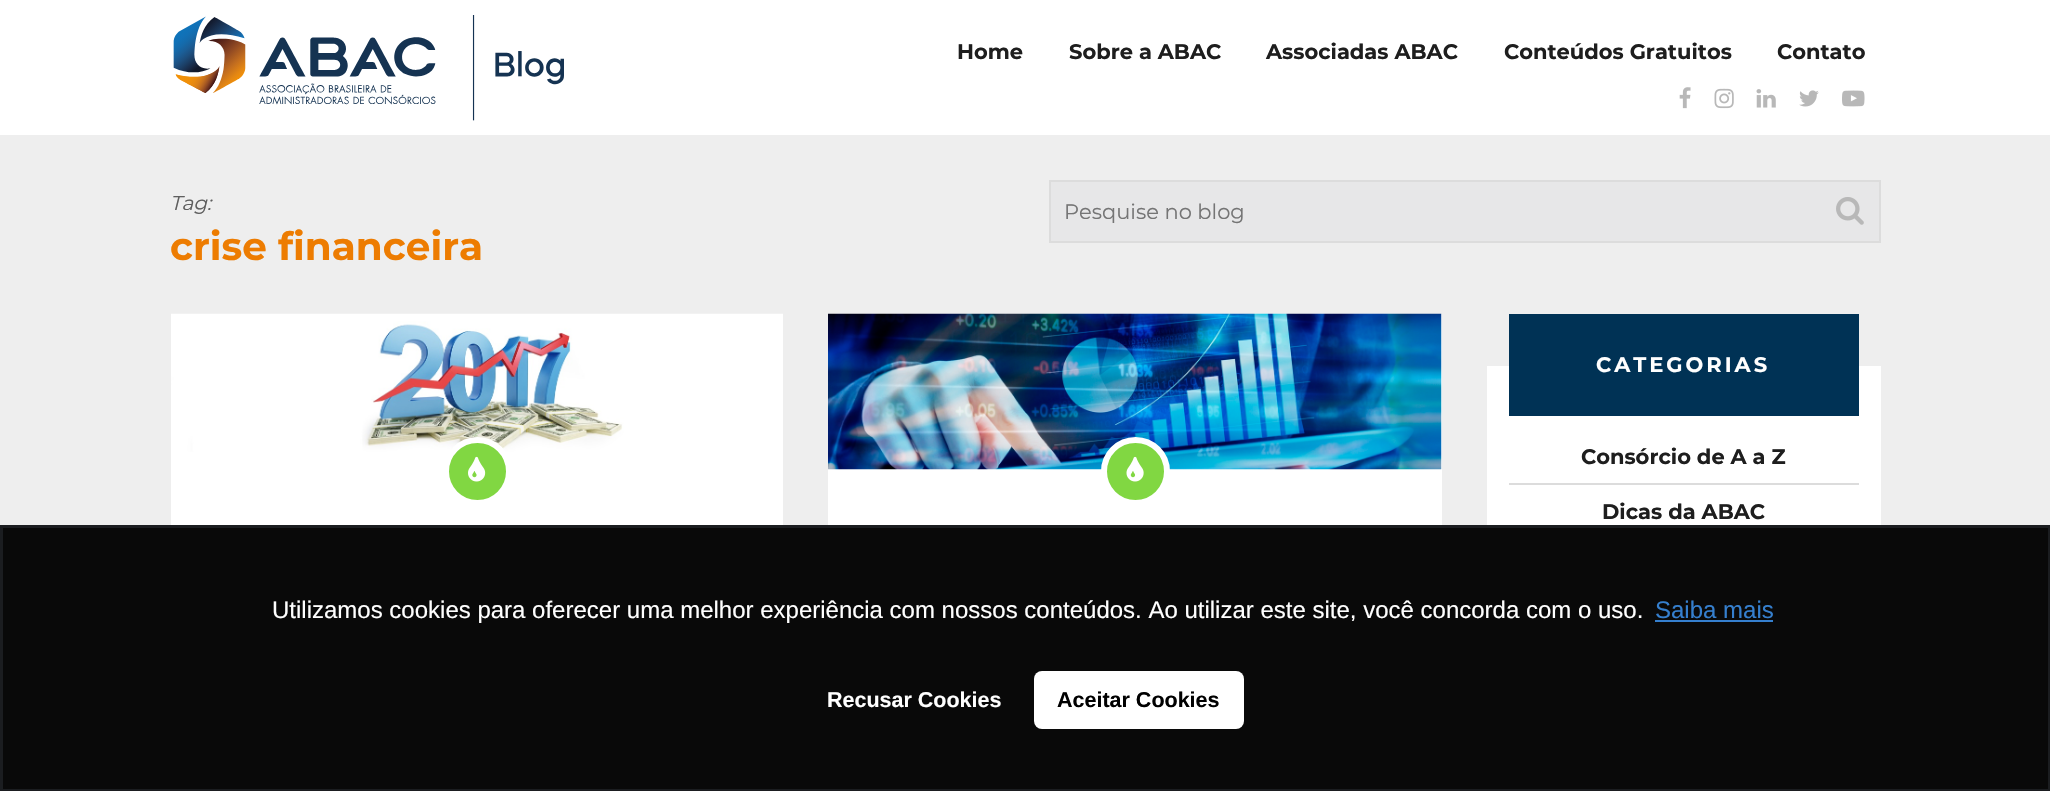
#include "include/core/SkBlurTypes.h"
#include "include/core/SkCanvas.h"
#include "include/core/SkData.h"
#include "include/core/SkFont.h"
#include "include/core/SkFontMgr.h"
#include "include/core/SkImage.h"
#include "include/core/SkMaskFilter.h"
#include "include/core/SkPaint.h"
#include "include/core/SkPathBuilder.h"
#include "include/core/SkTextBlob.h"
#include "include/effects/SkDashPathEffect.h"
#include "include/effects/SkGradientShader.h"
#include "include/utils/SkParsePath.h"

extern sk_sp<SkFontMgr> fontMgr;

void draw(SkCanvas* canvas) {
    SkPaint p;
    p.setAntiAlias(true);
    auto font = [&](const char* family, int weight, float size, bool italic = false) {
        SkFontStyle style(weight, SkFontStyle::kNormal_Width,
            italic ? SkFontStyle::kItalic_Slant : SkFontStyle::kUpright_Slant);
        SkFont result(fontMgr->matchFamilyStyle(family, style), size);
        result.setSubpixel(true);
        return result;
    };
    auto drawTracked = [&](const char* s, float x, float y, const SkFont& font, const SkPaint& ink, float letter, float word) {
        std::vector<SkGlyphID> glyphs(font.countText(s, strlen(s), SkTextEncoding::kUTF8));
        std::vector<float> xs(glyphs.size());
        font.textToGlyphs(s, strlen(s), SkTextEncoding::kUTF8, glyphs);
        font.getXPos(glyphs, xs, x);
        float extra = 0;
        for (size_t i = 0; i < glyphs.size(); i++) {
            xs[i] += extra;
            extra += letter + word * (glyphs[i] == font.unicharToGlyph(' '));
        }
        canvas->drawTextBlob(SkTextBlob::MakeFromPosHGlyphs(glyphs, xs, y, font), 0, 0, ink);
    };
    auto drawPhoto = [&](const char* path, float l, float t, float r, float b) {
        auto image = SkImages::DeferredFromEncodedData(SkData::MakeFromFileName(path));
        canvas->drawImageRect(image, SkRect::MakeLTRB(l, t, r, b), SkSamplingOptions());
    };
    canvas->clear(0xFFEEEEEE);
    p.setColor(0xFFFFFFFF);
    canvas->drawRect(SkRect::MakeLTRB(0, 0, 2050, 135), p);
    drawPhoto("media/1.png", 173, 15, 564, 121);
    auto font1 = font("Montserrat", 700, 21);
    p.setColor(0xFF1E1E1E);
    {
        const struct { const char* s; float x, y; } items[] = {
            {"Home", 957, 59},
            {"Sobre a ABAC", 1069, 59},
            {"Associadas ABAC", 1266, 59},
            {"Conteúdos Gratuitos", 1504, 59},
            {"Contato", 1777, 59},
        };
        for (auto [s, x, y] : items) {
            canvas->drawString(s, x, y, font1, p);
        }
    }
    drawPhoto("media/2.png", 1679, 87, 1691, 109);
    drawPhoto("media/3.png", 1714, 88, 1734, 109);
    drawPhoto("media/4.png", 1756, 89, 1776, 108);
    drawPhoto("media/5.png", 1799, 90, 1819, 107);
    drawPhoto("media/6.png", 1842, 90, 1865, 107);
    auto font2 = font("Montserrat", 400, 20, true);
    p.setColor(0xFF5F5F5F);
    canvas->drawString("Tag:", 170, 210, font2, p);
    auto font3 = font("Montserrat", 700, 39);
    p.setColor(0xFFED7C01);
    canvas->drawString("crise financeira", 170, 260, font3, p);
    p.setColor(0xFFE7E7E8);
    canvas->drawRect(SkRect::MakeLTRB(1050, 181, 1880, 242), p);
    p.setStyle(SkPaint::kStroke_Style);
    p.setStrokeWidth(2);
    p.setColor(0xFFDCDCDC);
    canvas->drawRect(SkRect::MakeLTRB(1050, 181, 1880, 242), p);
    auto font4 = font("Montserrat", 400, 21);
    p.setStyle(SkPaint::kFill_Style);
    p.setColor(0xFF757575);
    canvas->drawString("Pesquise no blog", 1064, 219, font4, p);
    drawPhoto("media/7.png", 1836, 197, 1864, 225);
    p.setColor(0xFFFFFFFF);
    canvas->drawRect(SkRect::MakeLTRB(171, 452, 783, 525), p);
    drawPhoto("media/8.png", 171, 313, 783, 452);
    p.setColor(0xFF81D742);
    canvas->drawCircle(477.5f, 471.5f, 31.5f, p);
    p.setStyle(SkPaint::kStroke_Style);
    p.setStrokeWidth(6);
    p.setColor(0xFFFFFFFF);
    canvas->drawCircle(477.5f, 471.5f, 31.5f, p);
    drawPhoto("media/9.png", 468, 456, 486, 482);
    p.setStyle(SkPaint::kFill_Style);
    canvas->drawRect(SkRect::MakeLTRB(828, 314, 1442, 525), p);
    drawPhoto("media/10.png", 828, 313, 1442, 470);
    p.setColor(0xFF81D742);
    canvas->drawCircle(1135.5f, 471.5f, 31.5f, p);
    p.setStyle(SkPaint::kStroke_Style);
    p.setColor(0xFFFFFFFF);
    canvas->drawCircle(1135.5f, 471.5f, 31.5f, p);
    drawPhoto("media/11.png", 1126, 456, 1144, 482);
    p.setStyle(SkPaint::kFill_Style);
    canvas->drawRect(SkRect::MakeLTRB(1487, 366, 1881, 525), p);
    p.setColor(0xFF003255);
    canvas->drawRect(SkRect::MakeLTRB(1509, 314, 1859, 416), p);
    p.setColor(0xFFFFFFFF);
    drawTracked("CATEGORIAS", 1596, 372, font1, p, 3, 0);
    p.setColor(0xFFDCDCDC);
    canvas->drawRect(SkRect::MakeLTRB(1509, 483, 1859, 485), p);
    p.setColor(0xFF1E1E1E);
    canvas->drawString("Consórcio de A a Z", 1581, 464, font1, p);
    canvas->drawString("Dicas da ABAC", 1602, 519, font1, p);
    p.setColor(0xFF090909);
    canvas->drawRect(SkRect::MakeLTRB(1.5f, 526.5f, 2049.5f, 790.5f), p);
    p.setStyle(SkPaint::kStroke_Style);
    p.setStrokeWidth(3);
    p.setColor(0xFF1B1D20);
    canvas->drawRect(SkRect::MakeLTRB(1.5f, 526.5f, 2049.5f, 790.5f), p);
    auto font5 = font("Liberation Sans", 400, 24);
    p.setStyle(SkPaint::kFill_Style);
    p.setColor(0xFFFFFFFF);
    canvas->drawString("Utilizamos cookies para oferecer uma melhor experiência com nossos conteúdos. Ao utilizar este site, você concorda com o uso.", 272, 618, font5, p);
    p.setColor(0xFF357FCE);
    canvas->drawString("Saiba mais", 1655, 618, font5, p);
    canvas->drawRect(SkRect::MakeLTRB(1655, 620, 1773, 622), p);
    auto font6 = font("Liberation Sans", 700, 21.5f);
    p.setColor(0xFFFFFFFF);
    canvas->drawString("Recusar Cookies", 827, 707, font6, p);
    canvas->drawRoundRect(SkRect::MakeLTRB(1034, 671, 1244, 729), 8, 8, p);
    p.setColor(0xFF000000);
    canvas->drawString("Aceitar Cookies", 1057, 707, font6, p);
}
